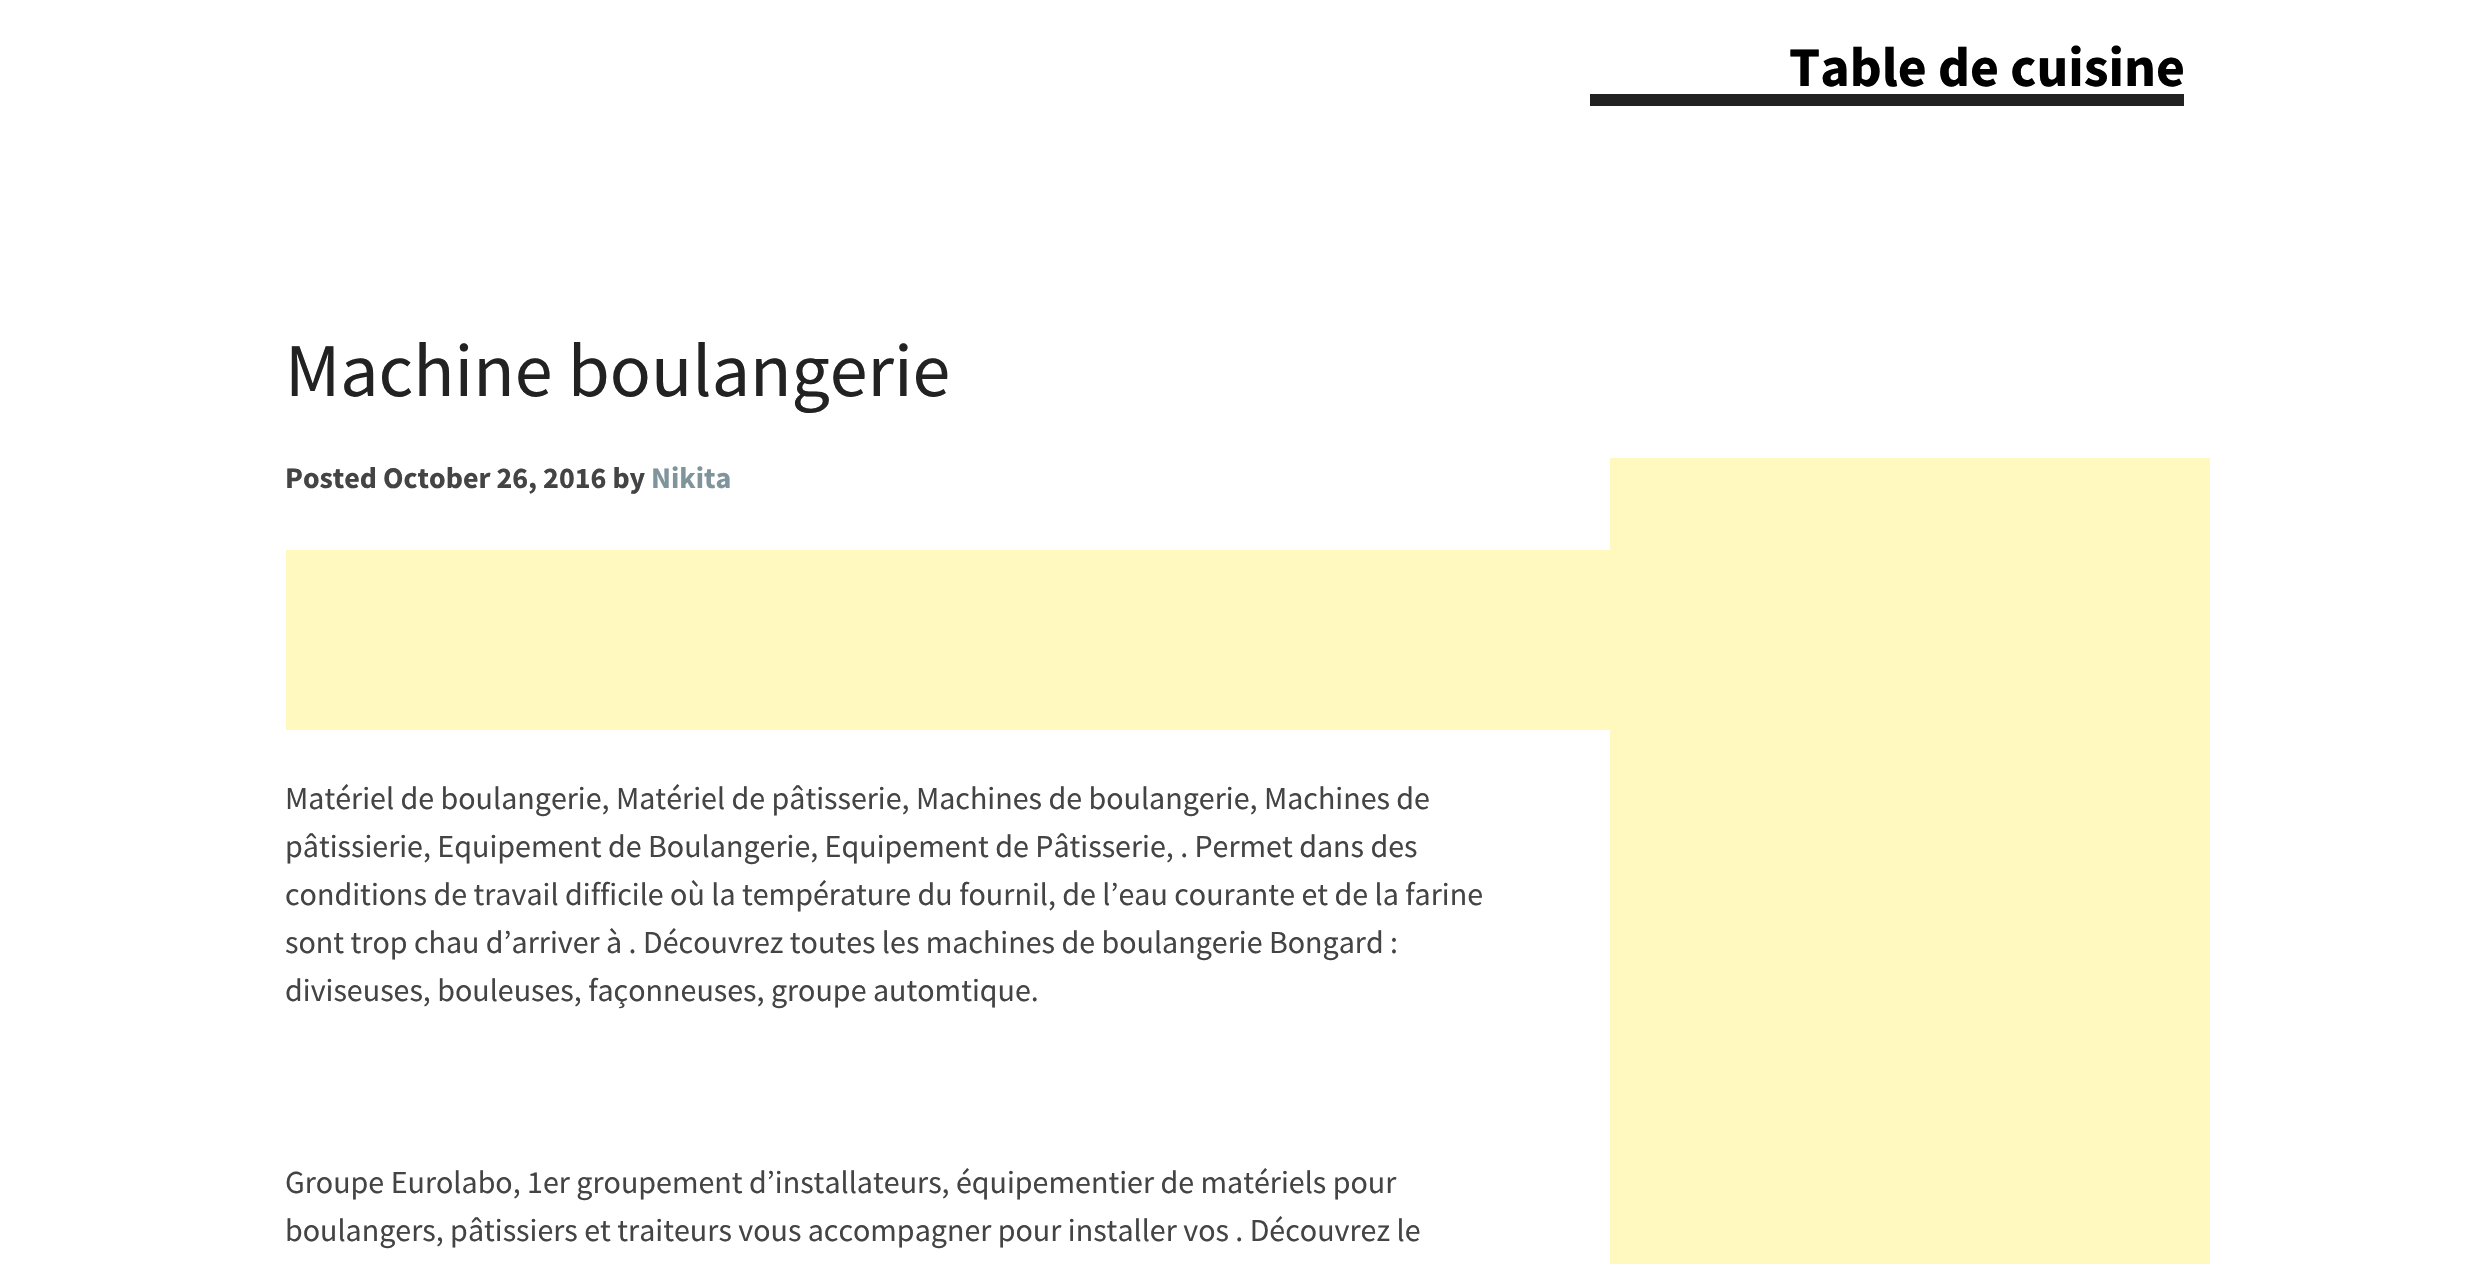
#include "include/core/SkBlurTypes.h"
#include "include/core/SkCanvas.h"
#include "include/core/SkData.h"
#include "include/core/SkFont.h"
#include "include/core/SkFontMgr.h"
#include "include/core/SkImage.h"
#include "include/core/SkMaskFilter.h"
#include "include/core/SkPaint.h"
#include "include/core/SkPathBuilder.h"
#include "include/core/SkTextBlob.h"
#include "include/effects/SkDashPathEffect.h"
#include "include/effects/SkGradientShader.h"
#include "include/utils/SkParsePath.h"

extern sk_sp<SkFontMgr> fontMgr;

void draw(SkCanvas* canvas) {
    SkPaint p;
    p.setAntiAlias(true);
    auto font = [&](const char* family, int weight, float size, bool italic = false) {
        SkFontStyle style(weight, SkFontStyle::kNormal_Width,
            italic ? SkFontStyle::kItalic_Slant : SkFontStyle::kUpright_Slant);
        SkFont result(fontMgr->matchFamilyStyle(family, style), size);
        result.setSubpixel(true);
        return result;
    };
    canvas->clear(0xFFFFFFFF);
    p.setColor(0xFF222222);
    canvas->drawRect(SkRect::MakeLTRB(1590, 94, 2184, 106), p);
    auto font1 = font("Source Sans Pro", 700, 56);
    p.setColor(0xFF000000);
    canvas->drawString("Table de cuisine", 1789, 86, font1, p);
    auto font2 = font("Source Sans Pro", 400, 76);
    p.setColor(0xFF222222);
    canvas->drawString("Machine boulangerie", 285, 396, font2, p);
    auto font3 = font("Source Sans Pro", 700, 30);
    p.setColor(0xFF444444);
    canvas->drawString("Posted October 26, 2016 by", 285, 488, font3, p);
    p.setColor(0xFF80949C);
    canvas->drawString("Nikita", 651, 488, font3, p);
    p.setColor(0xFFFFF9C0);
    canvas->drawRect(SkRect::MakeLTRB(286, 550, 1610, 730), p);
    auto font4 = font("Source Sans Pro", 400, 32);
    p.setColor(0xFF444444);
    {
        const struct { const char* s; float x, y; } items[] = {
            {"Matériel de boulangerie, Matériel de pâtisserie, Machines de boulangerie, Machines de", 285, 809},
            {"pâtissierie, Equipement de Boulangerie, Equipement de Pâtisserie, . Permet dans des", 285, 857},
            {"conditions de travail difficile où la température du fournil, de l’eau courante et de la farine", 285, 905},
            {"sont trop chau d’arriver à . Découvrez toutes les machines de boulangerie Bongard :", 285, 953},
            {"diviseuses, bouleuses, façonneuses, groupe automtique.", 285, 1001},
            {"Groupe Eurolabo, 1er groupement d’installateurs, équipementier de matériels pour", 285, 1193},
            {"boulangers, pâtissiers et traiteurs vous accompagner pour installer vos . Découvrez le", 285, 1241},
        };
        for (auto [s, x, y] : items) {
            canvas->drawString(s, x, y, font4, p);
        }
    }
    p.setColor(0xFFFFF9C0);
    canvas->drawRect(SkRect::MakeLTRB(1610, 458, 2210, 1264), p);
}
